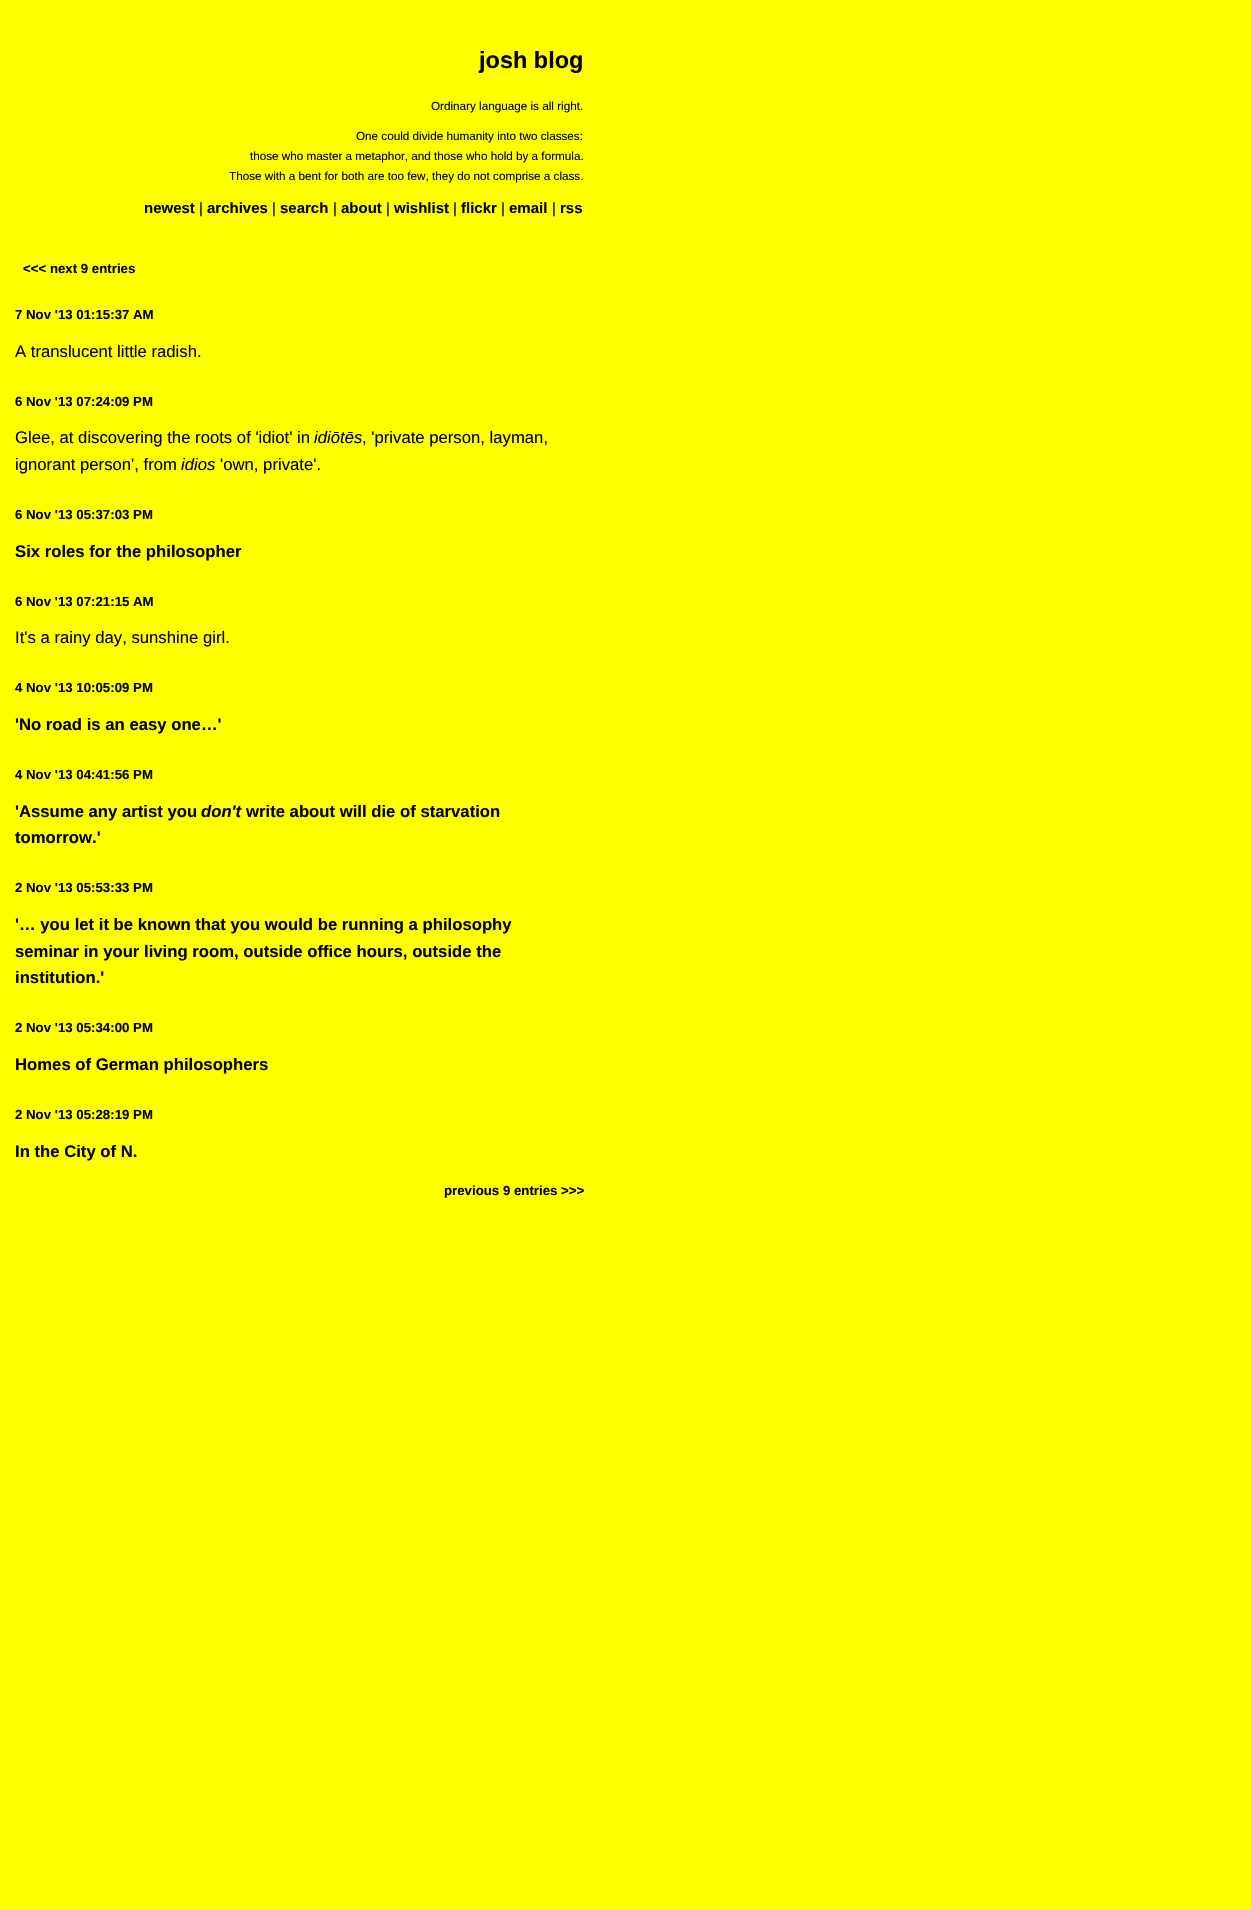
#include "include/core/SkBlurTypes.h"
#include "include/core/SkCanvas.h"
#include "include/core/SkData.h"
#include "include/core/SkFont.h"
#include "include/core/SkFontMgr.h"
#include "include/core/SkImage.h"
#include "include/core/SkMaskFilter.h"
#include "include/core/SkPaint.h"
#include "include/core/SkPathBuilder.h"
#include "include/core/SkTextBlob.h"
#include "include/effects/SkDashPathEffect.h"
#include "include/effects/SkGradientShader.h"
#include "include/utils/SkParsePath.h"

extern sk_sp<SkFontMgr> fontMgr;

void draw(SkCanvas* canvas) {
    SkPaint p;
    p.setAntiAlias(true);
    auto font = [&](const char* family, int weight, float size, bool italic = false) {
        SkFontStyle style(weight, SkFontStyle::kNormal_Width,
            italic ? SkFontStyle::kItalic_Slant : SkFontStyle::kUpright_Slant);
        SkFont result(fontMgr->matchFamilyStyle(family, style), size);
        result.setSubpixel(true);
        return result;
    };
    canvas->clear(0xFFFFFF00);
    auto font1 = font("Liberation Sans", 700, 23.5f);
    p.setColor(0xFF000000);
    canvas->drawString("josh blog", 479, 68, font1, p);
    auto font2 = font("Liberation Sans", 400, 11.7f);
    {
        const struct { const char* s; float x, y; } items[] = {
            {"Ordinary language is all right.", 431, 110},
            {"One could divide humanity into two classes:", 356, 140},
            {"those who master a metaphor, and those who hold by a formula.", 250, 160},
            {"Those with a bent for both are too few, they do not comprise a class.", 229, 180},
        };
        for (auto [s, x, y] : items) {
            canvas->drawString(s, x, y, font2, p);
        }
    }
    auto font3 = font("Liberation Sans", 700, 15);
    canvas->drawString("newest", 144, 213, font3, p);
    auto font4 = font("Liberation Sans", 400, 15);
    canvas->drawString("|", 199, 213, font4, p);
    canvas->drawString("archives", 207, 213, font3, p);
    canvas->drawString("|", 272, 213, font4, p);
    canvas->drawString("search", 280, 213, font3, p);
    canvas->drawString("|", 333, 213, font4, p);
    canvas->drawString("about", 341, 213, font3, p);
    canvas->drawString("|", 386, 213, font4, p);
    canvas->drawString("wishlist", 394, 213, font3, p);
    canvas->drawString("|", 453, 213, font4, p);
    canvas->drawString("flickr", 461, 213, font3, p);
    canvas->drawString("|", 501, 213, font4, p);
    canvas->drawString("email", 509, 213, font3, p);
    canvas->drawString("|", 552, 213, font4, p);
    canvas->drawString("rss", 560, 213, font3, p);
    auto font5 = font("Liberation Sans", 700, 13.25f);
    canvas->drawString("<<< next 9 entries", 23, 273, font5, p);
    canvas->drawString("7 Nov '13 01:15:37 AM", 15, 319, font5, p);
    auto font6 = font("Liberation Sans", 400, 16.7f);
    canvas->drawString("A translucent little radish.", 15, 357, font6, p);
    canvas->drawString("6 Nov '13 07:24:09 PM", 15, 406, font5, p);
    canvas->drawString("Glee, at discovering the roots of 'idiot' in", 15, 443, font6, p);
    auto font7 = font("Liberation Sans", 400, 16.7f, true);
    canvas->drawString("idiōtēs", 314, 443, font7, p);
    canvas->drawString(", 'private person, layman,", 362, 443, font6, p);
    canvas->drawString("ignorant person', from", 15, 470, font6, p);
    canvas->drawString("idios", 181, 470, font7, p);
    canvas->drawString("'own, private'.", 220, 470, font6, p);
    canvas->drawString("6 Nov '13 05:37:03 PM", 15, 519, font5, p);
    auto font8 = font("Liberation Sans", 700, 16.7f);
    canvas->drawString("Six roles for the philosopher", 15, 557, font8, p);
    canvas->drawString("6 Nov '13 07:21:15 AM", 15, 606, font5, p);
    canvas->drawString("It's a rainy day, sunshine girl.", 15, 643, font6, p);
    canvas->drawString("4 Nov '13 10:05:09 PM", 15, 692, font5, p);
    canvas->drawString("'No road is an easy one…'", 15, 730, font8, p);
    canvas->drawString("4 Nov '13 04:41:56 PM", 15, 779, font5, p);
    canvas->drawString("'Assume any artist you", 15, 817, font8, p);
    auto font9 = font("Liberation Sans", 700, 16.7f, true);
    canvas->drawString("don't", 201, 817, font9, p);
    canvas->drawString("write about will die of starvation", 246, 817, font8, p);
    canvas->drawString("tomorrow.'", 15, 843, font8, p);
    canvas->drawString("2 Nov '13 05:53:33 PM", 15, 892, font5, p);
    {
        const struct { const char* s; float x, y; } items[] = {
            {"'… you let it be known that you would be running a philosophy", 15, 930},
            {"seminar in your living room, outside office hours, outside the", 15, 957},
            {"institution.'", 15, 983},
        };
        for (auto [s, x, y] : items) {
            canvas->drawString(s, x, y, font8, p);
        }
    }
    canvas->drawString("2 Nov '13 05:34:00 PM", 15, 1032, font5, p);
    canvas->drawString("Homes of German philosophers", 15, 1070, font8, p);
    canvas->drawString("2 Nov '13 05:28:19 PM", 15, 1119, font5, p);
    canvas->drawString("In the City of N.", 15, 1157, font8, p);
    canvas->drawString("previous 9 entries >>>", 444, 1195, font5, p);
}
